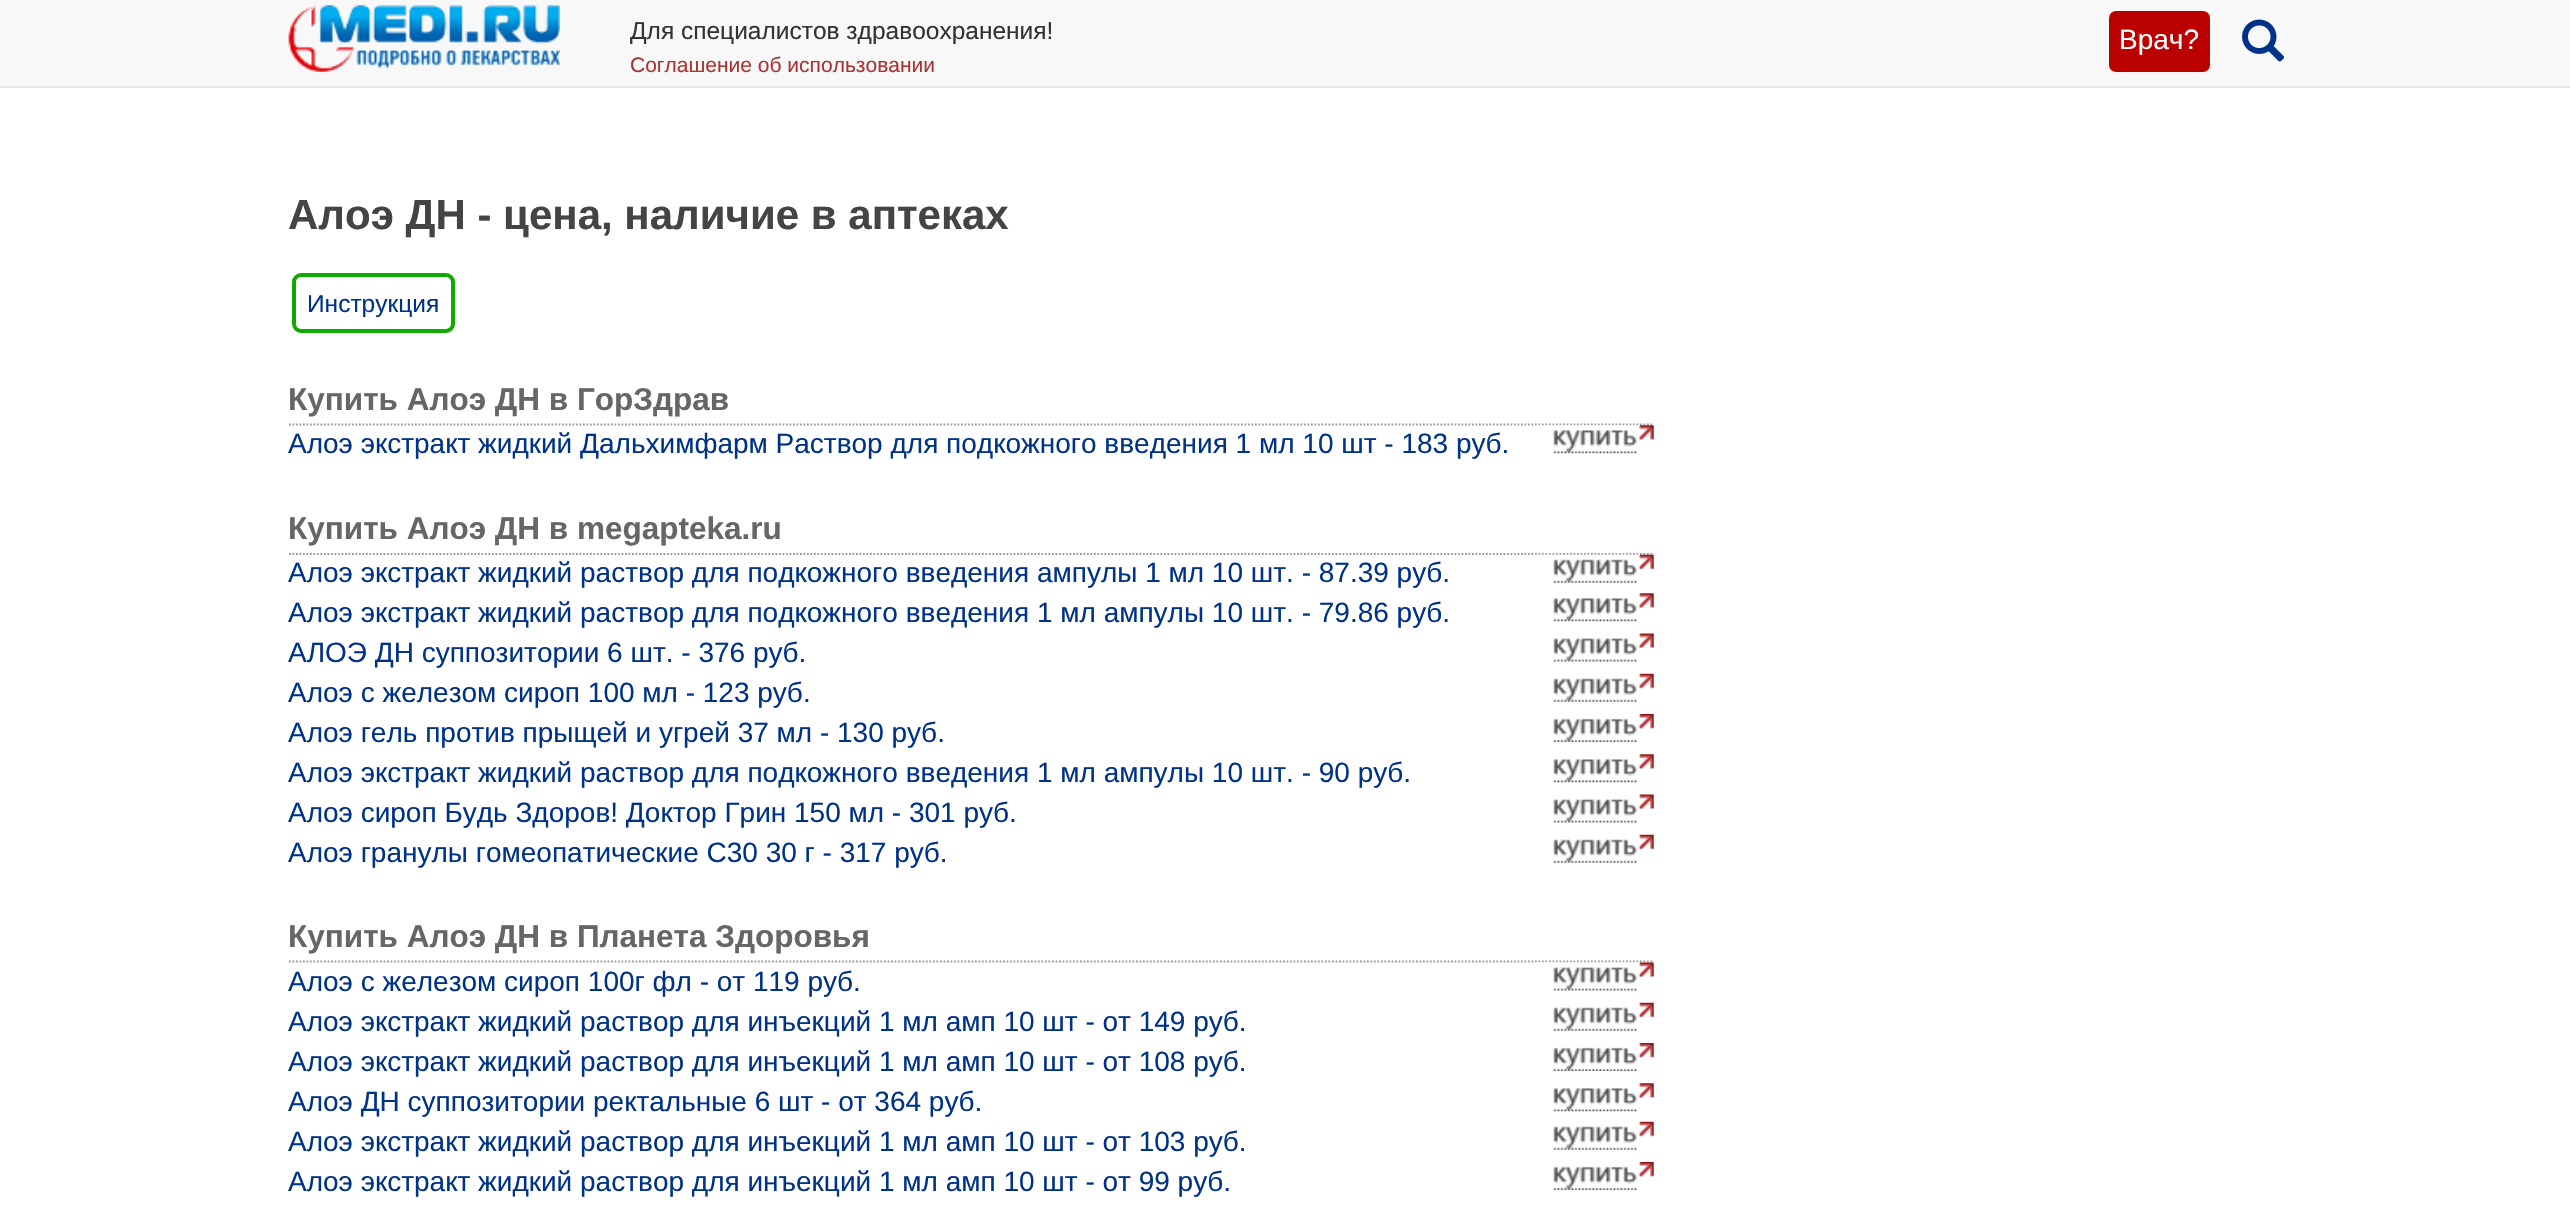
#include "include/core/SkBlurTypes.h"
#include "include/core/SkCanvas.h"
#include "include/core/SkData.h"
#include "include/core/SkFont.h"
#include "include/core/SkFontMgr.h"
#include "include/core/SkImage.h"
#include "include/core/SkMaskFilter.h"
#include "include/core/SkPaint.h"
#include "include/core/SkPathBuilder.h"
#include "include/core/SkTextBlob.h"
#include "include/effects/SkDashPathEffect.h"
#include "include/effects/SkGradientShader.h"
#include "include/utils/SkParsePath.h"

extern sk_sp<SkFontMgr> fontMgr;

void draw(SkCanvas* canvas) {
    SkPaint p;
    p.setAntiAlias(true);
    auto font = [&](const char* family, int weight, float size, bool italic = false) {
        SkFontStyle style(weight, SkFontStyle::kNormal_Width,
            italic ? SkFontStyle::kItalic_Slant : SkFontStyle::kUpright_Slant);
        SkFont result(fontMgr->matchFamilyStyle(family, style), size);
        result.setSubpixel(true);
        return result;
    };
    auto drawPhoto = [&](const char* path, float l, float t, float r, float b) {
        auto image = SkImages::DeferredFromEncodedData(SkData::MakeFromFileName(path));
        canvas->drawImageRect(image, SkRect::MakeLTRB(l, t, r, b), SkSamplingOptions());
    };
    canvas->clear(0xFFFFFFFF);
    p.setColor(0xFFF8F8F8);
    canvas->drawRect(SkRect::MakeLTRB(0, 0, 2570, 86), p);
    p.setColor(0xFFE7E7E7);
    canvas->drawRect(SkRect::MakeLTRB(0, 86, 2570, 88), p);
    drawPhoto("media/1.png", 288, 5, 560, 72);
    auto font1 = font("Liberation Sans", 400, 24.5f);
    p.setColor(0xFF333333);
    canvas->drawString("Для специалистов здравоохранения!", 630, 39, font1, p);
    auto font2 = font("Liberation Sans", 400, 21);
    p.setColor(0xFFAA3333);
    canvas->drawString("Соглашение об использовании", 630, 72, font2, p);
    p.setColor(0xFFBB0000);
    canvas->drawRoundRect(SkRect::MakeLTRB(2109, 11, 2210, 72), 7, 7, p);
    auto font3 = font("Liberation Sans", 400, 28);
    p.setColor(0xFFFFFFFF);
    canvas->drawString("Врач?", 2119, 49, font3, p);
    drawPhoto("media/2.png", 2242, 19, 2285, 62);
    auto font4 = font("Liberation Sans", 700, 42);
    p.setColor(0xFF444444);
    canvas->drawString("Алоэ ДН - цена, наличие в аптеках", 288, 229, font4, p);
    p.setStyle(SkPaint::kStroke_Style);
    p.setStrokeWidth(4);
    p.setColor(0xFF11AA00);
    canvas->drawRoundRect(SkRect::MakeLTRB(294, 275, 453, 331), 7, 7, p);
    p.setStyle(SkPaint::kFill_Style);
    p.setColor(0xFF003388);
    canvas->drawString("Инструкция", 307, 312, font1, p);
    p.setStyle(SkPaint::kStroke_Style);
    p.setStrokeWidth(1.8f);
    p.setColor(0xFF999999);
    p.setPathEffect(SkDashPathEffect::Make({{1.75f, 1.75f}}, 0));
    canvas->drawPath(SkPathBuilder().moveTo(289, 424.5f).lineTo(1654, 424.5f).detach(), p);
    p.setPathEffect(nullptr);
    auto font5 = font("Liberation Sans", 700, 31.5f);
    p.setStyle(SkPaint::kFill_Style);
    p.setColor(0xFF666666);
    canvas->drawString("Купить Алоэ ДН в ГорЗдрав", 288, 410, font5, p);
    p.setColor(0xFF003388);
    canvas->drawString("Алоэ экстракт жидкий Дальхимфарм Раствор для подкожного введения 1 мл 10 шт - 183 руб.", 288, 453, font3, p);
    drawPhoto("media/3.png", 1535, 425, 1654, 454);
    p.setStyle(SkPaint::kStroke_Style);
    p.setColor(0xFF999999);
    p.setPathEffect(SkDashPathEffect::Make({{1.75f, 1.75f}}, 0));
    canvas->drawPath(SkPathBuilder().moveTo(289, 554).lineTo(1654, 554).detach(), p);
    p.setPathEffect(nullptr);
    p.setStyle(SkPaint::kFill_Style);
    p.setColor(0xFF666666);
    canvas->drawString("Купить Алоэ ДН в megapteka.ru", 288, 539, font5, p);
    p.setColor(0xFF003388);
    canvas->drawString("Алоэ экстракт жидкий раствор для подкожного введения ампулы 1 мл 10 шт. - 87.39 руб.", 288, 582, font3, p);
    drawPhoto("media/4.png", 1535, 554, 1654, 583);
    canvas->drawString("Алоэ экстракт жидкий раствор для подкожного введения 1 мл ампулы 10 шт. - 79.86 руб.", 288, 622, font3, p);
    drawPhoto("media/5.png", 1553, 593, 1654, 622);
    canvas->drawString("АЛОЭ ДН суппозитории 6 шт. - 376 руб.", 288, 662, font3, p);
    drawPhoto("media/6.png", 1553, 633, 1654, 662);
    canvas->drawString("Алоэ с железом сироп 100 мл - 123 руб.", 288, 702, font3, p);
    drawPhoto("media/7.png", 1553, 673, 1654, 702);
    canvas->drawString("Алоэ гель против прыщей и угрей 37 мл - 130 руб.", 288, 742, font3, p);
    drawPhoto("media/8.png", 1553, 714, 1654, 742);
    canvas->drawString("Алоэ экстракт жидкий раствор для подкожного введения 1 мл ампулы 10 шт. - 90 руб.", 288, 782, font3, p);
    drawPhoto("media/5.png", 1553, 754, 1654, 783);
    canvas->drawString("Алоэ сироп Будь Здоров! Доктор Грин 150 мл - 301 руб.", 288, 822, font3, p);
    drawPhoto("media/6.png", 1553, 794, 1654, 823);
    canvas->drawString("Алоэ гранулы гомеопатические С30 30 г - 317 руб.", 288, 862, font3, p);
    drawPhoto("media/7.png", 1553, 834, 1654, 863);
    p.setStyle(SkPaint::kStroke_Style);
    p.setColor(0xFF999999);
    p.setPathEffect(SkDashPathEffect::Make({{1.75f, 1.75f}}, 0));
    canvas->drawPath(SkPathBuilder().moveTo(289, 961.5f).lineTo(1654, 961.5f).detach(), p);
    p.setPathEffect(nullptr);
    p.setStyle(SkPaint::kFill_Style);
    p.setColor(0xFF666666);
    canvas->drawString("Купить Алоэ ДН в Планета Здоровья", 288, 947, font5, p);
    p.setColor(0xFF003388);
    canvas->drawString("Алоэ с железом сироп 100г фл - от 119 руб.", 288, 991, font3, p);
    drawPhoto("media/9.png", 1535, 962, 1654, 991);
    canvas->drawString("Алоэ экстракт жидкий раствор для инъекций 1 мл амп 10 шт - от 149 руб.", 288, 1031, font3, p);
    drawPhoto("media/7.png", 1553, 1002, 1654, 1031);
    canvas->drawString("Алоэ экстракт жидкий раствор для инъекций 1 мл амп 10 шт - от 108 руб.", 288, 1071, font3, p);
    drawPhoto("media/8.png", 1553, 1043, 1654, 1071);
    canvas->drawString("Алоэ ДН суппозитории ректальные 6 шт - от 364 руб.", 288, 1111, font3, p);
    drawPhoto("media/5.png", 1553, 1083, 1654, 1112);
    canvas->drawString("Алоэ экстракт жидкий раствор для инъекций 1 мл амп 10 шт - от 103 руб.", 288, 1151, font3, p);
    drawPhoto("media/7.png", 1553, 1121, 1654, 1150);
    canvas->drawString("Алоэ экстракт жидкий раствор для инъекций 1 мл амп 10 шт - от 99 руб.", 288, 1191, font3, p);
    drawPhoto("media/8.png", 1553, 1162, 1654, 1190);
}
